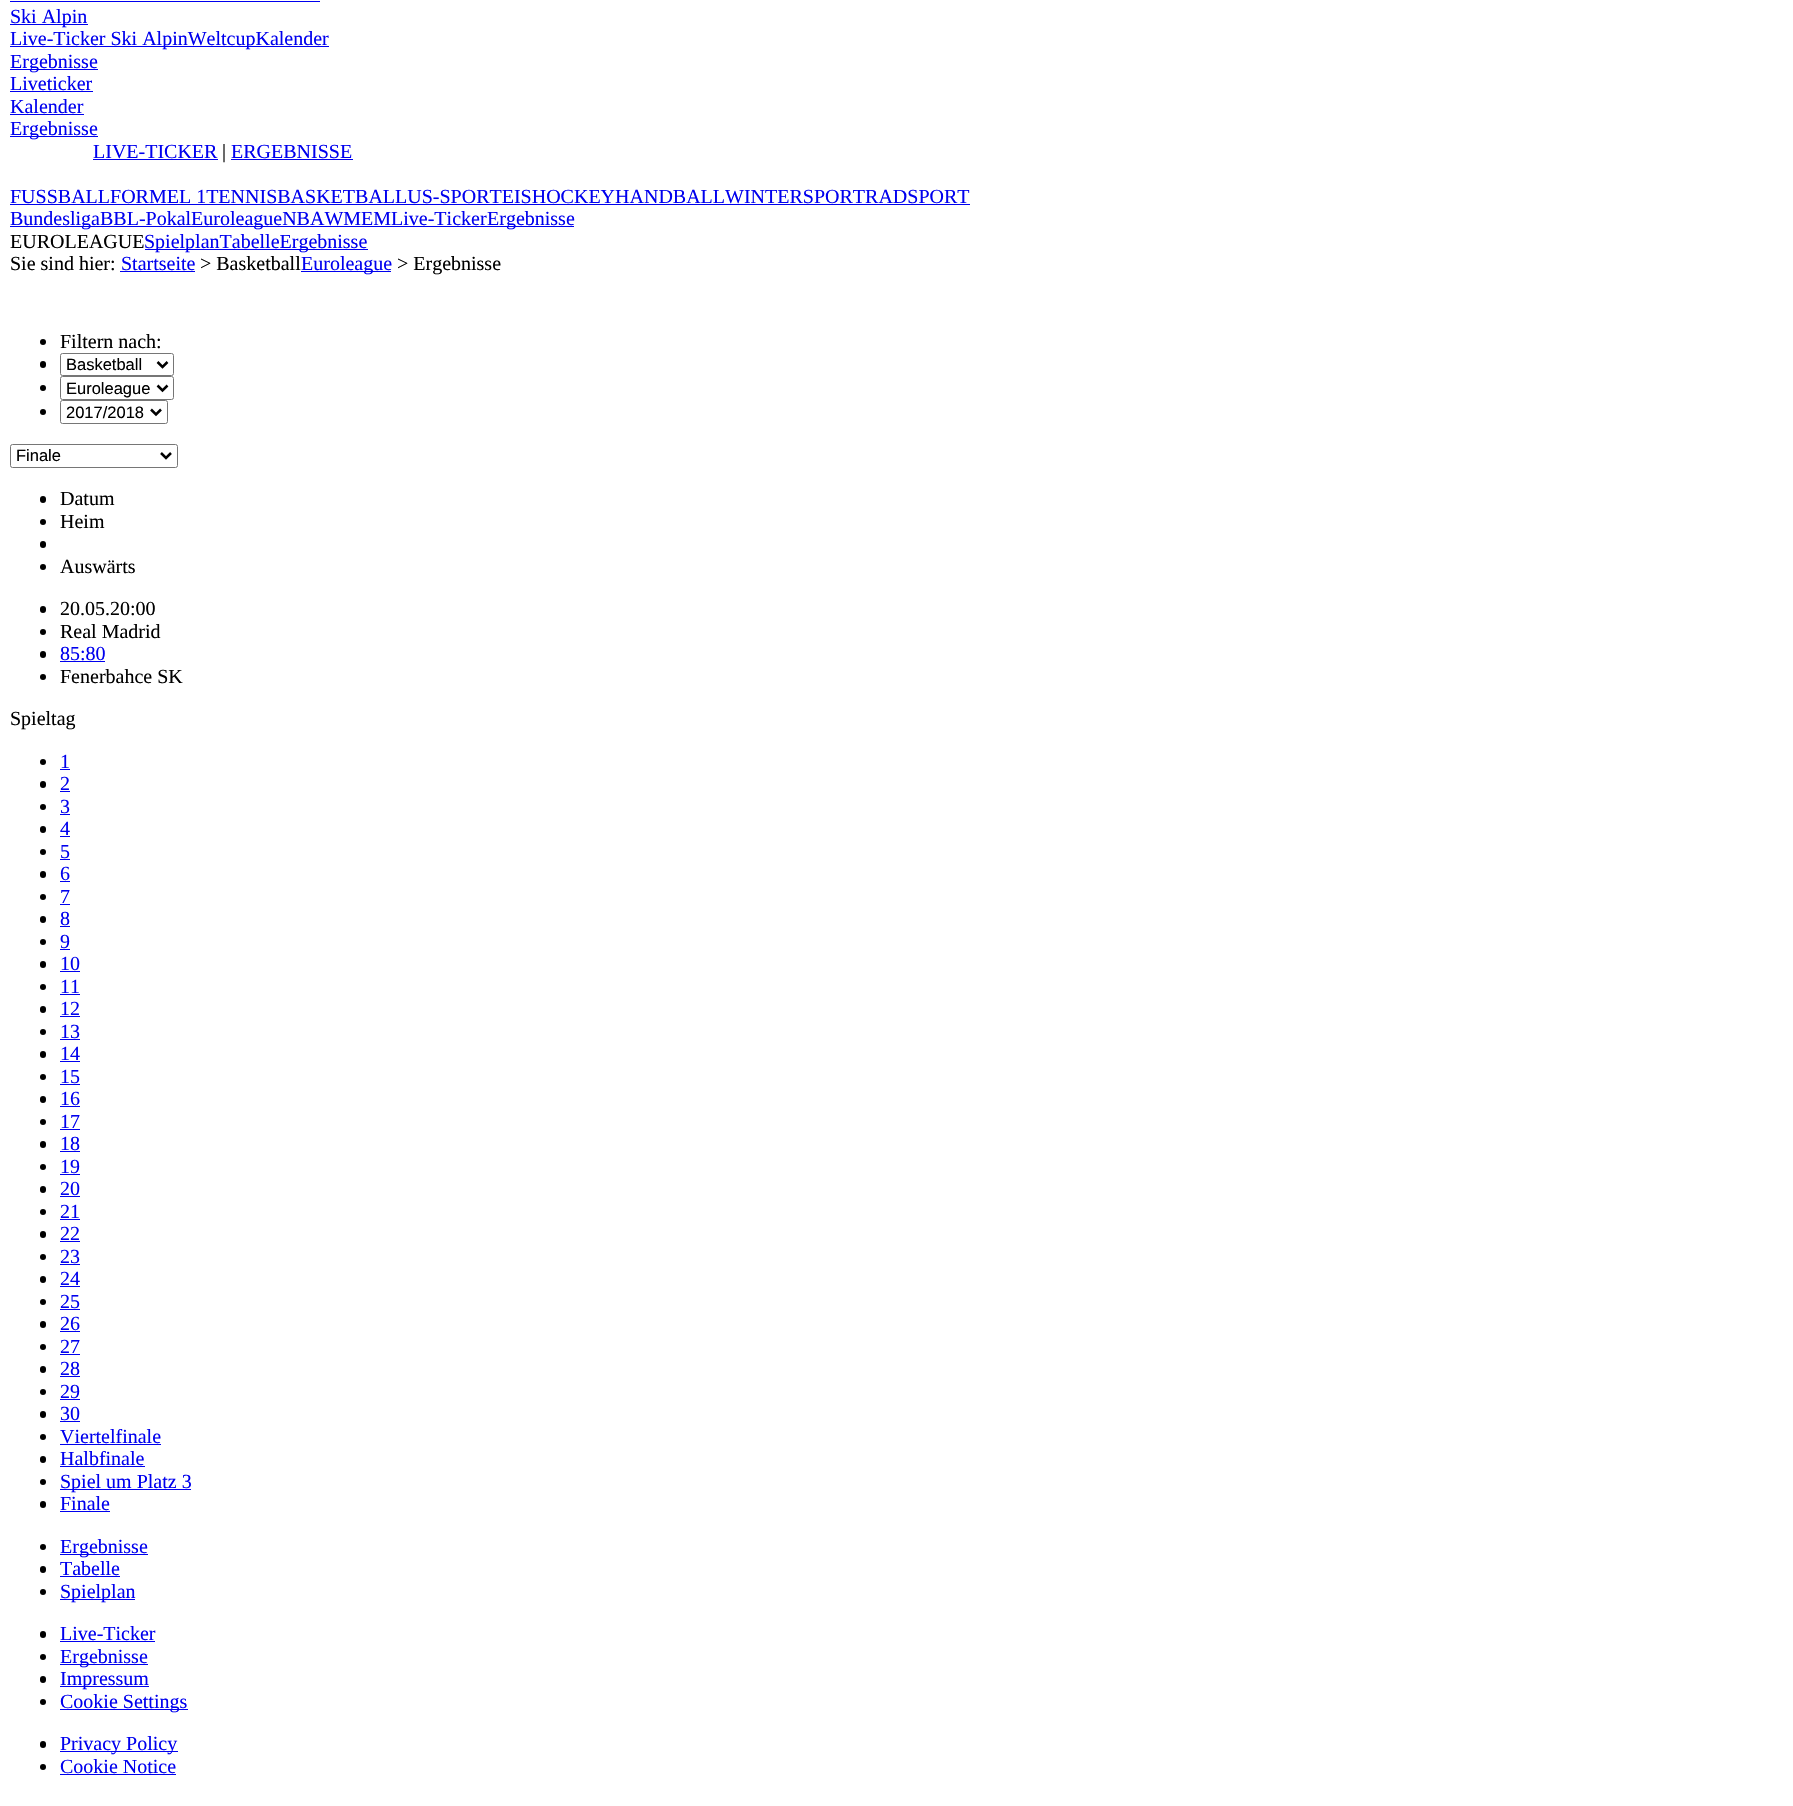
#include "include/core/SkBlurTypes.h"
#include "include/core/SkCanvas.h"
#include "include/core/SkData.h"
#include "include/core/SkFont.h"
#include "include/core/SkFontMgr.h"
#include "include/core/SkImage.h"
#include "include/core/SkMaskFilter.h"
#include "include/core/SkPaint.h"
#include "include/core/SkPathBuilder.h"
#include "include/core/SkTextBlob.h"
#include "include/effects/SkDashPathEffect.h"
#include "include/effects/SkGradientShader.h"
#include "include/utils/SkParsePath.h"

extern sk_sp<SkFontMgr> fontMgr;

void draw(SkCanvas* canvas) {
    SkPaint p;
    p.setAntiAlias(true);
    auto font = [&](const char* family, int weight, float size, bool italic = false) {
        SkFontStyle style(weight, SkFontStyle::kNormal_Width,
            italic ? SkFontStyle::kItalic_Slant : SkFontStyle::kUpright_Slant);
        SkFont result(fontMgr->matchFamilyStyle(family, style), size);
        result.setSubpixel(true);
        return result;
    };
    canvas->clear(0xFFFFFFFF);
    p.setColor(0xFF0000EE);
    canvas->drawRect(SkRect::MakeLTRB(10, 1, 320, 2), p);
    canvas->drawRect(SkRect::MakeLTRB(10, 24, 88, 25), p);
    auto font1 = font("Liberation Serif", 400, 20);
    canvas->drawString("Ski Alpin", 10, 23, font1, p);
    canvas->drawRect(SkRect::MakeLTRB(10, 46, 329, 47), p);
    canvas->drawString("Live-Ticker Ski AlpinWeltcupKalender", 10, 45, font1, p);
    canvas->drawRect(SkRect::MakeLTRB(10, 69, 98, 70), p);
    canvas->drawString("Ergebnisse", 10, 68, font1, p);
    canvas->drawString("Liveticker", 10, 90, font1, p);
    canvas->drawRect(SkRect::MakeLTRB(10, 91, 93, 92), p);
    canvas->drawString("Kalender", 10, 113, font1, p);
    canvas->drawRect(SkRect::MakeLTRB(10, 114, 84, 115), p);
    canvas->drawRect(SkRect::MakeLTRB(10, 136, 98, 137), p);
    canvas->drawString("Ergebnisse", 10, 135, font1, p);
    canvas->drawString("LIVE-TICKER", 93, 158, font1, p);
    canvas->drawRect(SkRect::MakeLTRB(93, 159, 218, 160), p);
    p.setColor(0xFF000000);
    canvas->drawString("|", 222, 158, font1, p);
    p.setColor(0xFF0000EE);
    canvas->drawString("ERGEBNISSE", 231, 158, font1, p);
    canvas->drawRect(SkRect::MakeLTRB(231, 159, 353, 160), p);
    canvas->drawString("FUSSBALLFORMEL 1TENNISBASKETBALLUS-SPORTEISHOCKEYHANDBALLWINTERSPORTRADSPORT", 10, 203, font1, p);
    canvas->drawRect(SkRect::MakeLTRB(10, 204, 970, 205), p);
    canvas->drawRect(SkRect::MakeLTRB(10, 226, 486, 227), p);
    canvas->drawString("BundesligaBBL-PokalEuroleagueNBAWMEMLive-Ticker", 10, 225, font1, p);
    canvas->drawRect(SkRect::MakeLTRB(486, 226, 574, 227), p);
    canvas->drawString("Ergebnisse", 487, 225, font1, p);
    p.setColor(0xFF000000);
    canvas->drawString("EUROLEAGUE", 10, 248, font1, p);
    p.setColor(0xFF0000EE);
    canvas->drawRect(SkRect::MakeLTRB(145, 249, 368, 250), p);
    canvas->drawString("SpielplanTabelleErgebnisse", 144, 248, font1, p);
    p.setColor(0xFF000000);
    canvas->drawString("Sie sind hier:", 10, 270, font1, p);
    p.setColor(0xFF0000EE);
    canvas->drawString("Startseite", 121, 270, font1, p);
    canvas->drawRect(SkRect::MakeLTRB(120, 271, 195, 272), p);
    p.setColor(0xFF000000);
    canvas->drawString("> Basketball", 200, 270, font1, p);
    p.setColor(0xFF0000EE);
    canvas->drawRect(SkRect::MakeLTRB(301, 271, 391, 272), p);
    canvas->drawString("Euroleague", 301, 270, font1, p);
    p.setColor(0xFF000000);
    canvas->drawString("> Ergebnisse", 397, 270, font1, p);
    canvas->drawCircle(43, 342, 3, p);
    canvas->drawString("Filtern nach:", 60, 348, font1, p);
    canvas->drawRoundRect(SkRect::MakeLTRB(40, 361, 46, 368), 3, 3, p);
    p.setStyle(SkPaint::kStroke_Style);
    p.setStrokeWidth(1);
    p.setColor(0xFF767676);
    canvas->drawRoundRect(SkRect::MakeLTRB(60.5f, 353.5f, 173.5f, 375.5f), 2, 2, p);
    p.setStrokeWidth(2.5f);
    p.setColor(0xFF000000);
    canvas->drawPath(SkPathBuilder().moveTo(157.5f, 362).lineTo(162.5f, 367).lineTo(167.5f, 362).detach(), p);
    auto font2 = font("Liberation Sans", 400, 16.5f);
    p.setStyle(SkPaint::kFill_Style);
    canvas->drawString("Basketball", 66, 370, font2, p);
    canvas->drawCircle(43, 388, 3, p);
    p.setStyle(SkPaint::kStroke_Style);
    p.setStrokeWidth(1);
    p.setColor(0xFF767676);
    canvas->drawRoundRect(SkRect::MakeLTRB(60.5f, 376.5f, 173.5f, 399.5f), 2, 2, p);
    p.setStrokeWidth(2.5f);
    p.setColor(0xFF000000);
    canvas->drawPath(SkPathBuilder().moveTo(157.5f, 385.5f).lineTo(162.5f, 390.5f).lineTo(167.5f, 385.5f).detach(), p);
    p.setStyle(SkPaint::kFill_Style);
    canvas->drawString("Euroleague", 66, 394, font2, p);
    canvas->drawCircle(43, 412, 3, p);
    p.setStyle(SkPaint::kStroke_Style);
    p.setStrokeWidth(1);
    p.setColor(0xFF767676);
    canvas->drawRoundRect(SkRect::MakeLTRB(60.5f, 400.5f, 167.5f, 423.5f), 2, 2, p);
    p.setStrokeWidth(2.5f);
    p.setColor(0xFF000000);
    canvas->drawPath(SkPathBuilder().moveTo(151, 409.5f).lineTo(156, 414.5f).lineTo(161, 409.5f).detach(), p);
    p.setStyle(SkPaint::kFill_Style);
    canvas->drawString("2017/2018", 66, 418, font2, p);
    p.setStyle(SkPaint::kStroke_Style);
    p.setStrokeWidth(1);
    p.setColor(0xFF767676);
    canvas->drawRoundRect(SkRect::MakeLTRB(10.5f, 444.5f, 177.5f, 467.5f), 2, 2, p);
    p.setStrokeWidth(2.5f);
    p.setColor(0xFF000000);
    canvas->drawPath(SkPathBuilder().moveTo(161, 453).lineTo(166, 458).lineTo(171, 453).detach(), p);
    p.setStyle(SkPaint::kFill_Style);
    canvas->drawString("Finale", 16, 461, font2, p);
    canvas->drawRoundRect(SkRect::MakeLTRB(40, 496, 46, 503), 3, 3, p);
    canvas->drawString("Datum", 60, 505, font1, p);
    canvas->drawCircle(43, 522, 3, p);
    canvas->drawString("Heim", 60, 528, font1, p);
    canvas->drawRoundRect(SkRect::MakeLTRB(40, 541, 46, 548), 3, 3, p);
    canvas->drawCircle(43, 567, 3, p);
    canvas->drawString("Auswärts", 60, 573, font1, p);
    canvas->drawRoundRect(SkRect::MakeLTRB(40, 606, 46, 613), 3, 3, p);
    canvas->drawString("20.05.20:00", 60, 615, font1, p);
    canvas->drawCircle(43, 632, 3, p);
    canvas->drawString("Real Madrid", 60, 638, font1, p);
    canvas->drawRoundRect(SkRect::MakeLTRB(40, 651, 46, 658), 3, 3, p);
    p.setColor(0xFF0000EE);
    canvas->drawString("85:80", 60, 660, font1, p);
    canvas->drawRect(SkRect::MakeLTRB(60, 661, 105, 662), p);
    p.setColor(0xFF000000);
    canvas->drawCircle(43, 677, 3, p);
    canvas->drawString("Fenerbahce SK", 60, 683, font1, p);
    canvas->drawString("Spieltag", 10, 725, font1, p);
    canvas->drawCircle(43, 762, 3, p);
    p.setColor(0xFF0000EE);
    canvas->drawString("1", 60, 768, font1, p);
    canvas->drawRect(SkRect::MakeLTRB(60, 769, 70, 770), p);
    p.setColor(0xFF000000);
    canvas->drawRoundRect(SkRect::MakeLTRB(40, 781, 46, 788), 3, 3, p);
    p.setColor(0xFF0000EE);
    canvas->drawString("2", 60, 790, font1, p);
    canvas->drawRect(SkRect::MakeLTRB(60, 791, 70, 792), p);
    p.setColor(0xFF000000);
    canvas->drawCircle(43, 807, 3, p);
    p.setColor(0xFF0000EE);
    canvas->drawString("3", 60, 813, font1, p);
    canvas->drawRect(SkRect::MakeLTRB(60, 814, 70, 815), p);
    p.setColor(0xFF000000);
    canvas->drawRoundRect(SkRect::MakeLTRB(40, 826, 46, 833), 3, 3, p);
    p.setColor(0xFF0000EE);
    canvas->drawString("4", 60, 835, font1, p);
    canvas->drawRect(SkRect::MakeLTRB(60, 836, 70, 837), p);
    p.setColor(0xFF000000);
    canvas->drawCircle(43, 852, 3, p);
    p.setColor(0xFF0000EE);
    canvas->drawString("5", 60, 858, font1, p);
    canvas->drawRect(SkRect::MakeLTRB(60, 859, 70, 860), p);
    p.setColor(0xFF000000);
    canvas->drawRoundRect(SkRect::MakeLTRB(40, 871, 46, 878), 3, 3, p);
    p.setColor(0xFF0000EE);
    canvas->drawString("6", 60, 880, font1, p);
    canvas->drawRect(SkRect::MakeLTRB(60, 881, 70, 882), p);
    p.setColor(0xFF000000);
    canvas->drawCircle(43, 897, 3, p);
    p.setColor(0xFF0000EE);
    canvas->drawString("7", 60, 903, font1, p);
    canvas->drawRect(SkRect::MakeLTRB(60, 904, 70, 905), p);
    p.setColor(0xFF000000);
    canvas->drawRoundRect(SkRect::MakeLTRB(40, 916, 46, 923), 3, 3, p);
    p.setColor(0xFF0000EE);
    canvas->drawString("8", 60, 925, font1, p);
    canvas->drawRect(SkRect::MakeLTRB(60, 926, 70, 927), p);
    p.setColor(0xFF000000);
    canvas->drawCircle(43, 942, 3, p);
    p.setColor(0xFF0000EE);
    canvas->drawString("9", 60, 948, font1, p);
    canvas->drawRect(SkRect::MakeLTRB(60, 949, 70, 950), p);
    p.setColor(0xFF000000);
    canvas->drawRoundRect(SkRect::MakeLTRB(40, 961, 46, 968), 3, 3, p);
    p.setColor(0xFF0000EE);
    canvas->drawString("10", 60, 970, font1, p);
    canvas->drawRect(SkRect::MakeLTRB(60, 971, 80, 972), p);
    p.setColor(0xFF000000);
    canvas->drawCircle(43, 987, 3, p);
    p.setColor(0xFF0000EE);
    canvas->drawString("11", 60, 993, font1, p);
    canvas->drawRect(SkRect::MakeLTRB(60, 994, 80, 995), p);
    p.setColor(0xFF000000);
    canvas->drawRoundRect(SkRect::MakeLTRB(40, 1006, 46, 1013), 3, 3, p);
    p.setColor(0xFF0000EE);
    canvas->drawString("12", 60, 1015, font1, p);
    canvas->drawRect(SkRect::MakeLTRB(60, 1016, 80, 1017), p);
    p.setColor(0xFF000000);
    canvas->drawCircle(43, 1032, 3, p);
    p.setColor(0xFF0000EE);
    canvas->drawString("13", 60, 1038, font1, p);
    canvas->drawRect(SkRect::MakeLTRB(60, 1039, 80, 1040), p);
    p.setColor(0xFF000000);
    canvas->drawRoundRect(SkRect::MakeLTRB(40, 1051, 46, 1058), 3, 3, p);
    p.setColor(0xFF0000EE);
    canvas->drawString("14", 60, 1060, font1, p);
    canvas->drawRect(SkRect::MakeLTRB(60, 1061, 80, 1062), p);
    p.setColor(0xFF000000);
    canvas->drawCircle(43, 1077, 3, p);
    p.setColor(0xFF0000EE);
    canvas->drawString("15", 60, 1083, font1, p);
    canvas->drawRect(SkRect::MakeLTRB(60, 1084, 80, 1085), p);
    p.setColor(0xFF000000);
    canvas->drawRoundRect(SkRect::MakeLTRB(40, 1096, 46, 1103), 3, 3, p);
    p.setColor(0xFF0000EE);
    canvas->drawString("16", 60, 1105, font1, p);
    canvas->drawRect(SkRect::MakeLTRB(60, 1106, 80, 1107), p);
    p.setColor(0xFF000000);
    canvas->drawCircle(43, 1122, 3, p);
    p.setColor(0xFF0000EE);
    canvas->drawString("17", 60, 1128, font1, p);
    canvas->drawRect(SkRect::MakeLTRB(60, 1129, 80, 1130), p);
    p.setColor(0xFF000000);
    canvas->drawRoundRect(SkRect::MakeLTRB(40, 1141, 46, 1148), 3, 3, p);
    p.setColor(0xFF0000EE);
    canvas->drawString("18", 60, 1150, font1, p);
    canvas->drawRect(SkRect::MakeLTRB(60, 1151, 80, 1152), p);
    p.setColor(0xFF000000);
    canvas->drawCircle(43, 1167, 3, p);
    p.setColor(0xFF0000EE);
    canvas->drawString("19", 60, 1173, font1, p);
    canvas->drawRect(SkRect::MakeLTRB(60, 1174, 80, 1175), p);
    p.setColor(0xFF000000);
    canvas->drawRoundRect(SkRect::MakeLTRB(40, 1186, 46, 1193), 3, 3, p);
    p.setColor(0xFF0000EE);
    canvas->drawString("20", 60, 1195, font1, p);
    canvas->drawRect(SkRect::MakeLTRB(60, 1196, 80, 1197), p);
    p.setColor(0xFF000000);
    canvas->drawCircle(43, 1212, 3, p);
    p.setColor(0xFF0000EE);
    canvas->drawString("21", 60, 1218, font1, p);
    canvas->drawRect(SkRect::MakeLTRB(60, 1219, 80, 1220), p);
    p.setColor(0xFF000000);
    canvas->drawRoundRect(SkRect::MakeLTRB(40, 1231, 46, 1238), 3, 3, p);
    p.setColor(0xFF0000EE);
    canvas->drawString("22", 60, 1240, font1, p);
    canvas->drawRect(SkRect::MakeLTRB(60, 1241, 80, 1242), p);
    p.setColor(0xFF000000);
    canvas->drawCircle(43, 1257, 3, p);
    p.setColor(0xFF0000EE);
    canvas->drawString("23", 60, 1263, font1, p);
    canvas->drawRect(SkRect::MakeLTRB(60, 1264, 80, 1265), p);
    p.setColor(0xFF000000);
    canvas->drawRoundRect(SkRect::MakeLTRB(40, 1276, 46, 1283), 3, 3, p);
    p.setColor(0xFF0000EE);
    canvas->drawString("24", 60, 1285, font1, p);
    canvas->drawRect(SkRect::MakeLTRB(60, 1286, 80, 1287), p);
    p.setColor(0xFF000000);
    canvas->drawCircle(43, 1302, 3, p);
    p.setColor(0xFF0000EE);
    canvas->drawString("25", 60, 1308, font1, p);
    canvas->drawRect(SkRect::MakeLTRB(60, 1309, 80, 1310), p);
    p.setColor(0xFF000000);
    canvas->drawRoundRect(SkRect::MakeLTRB(40, 1321, 46, 1328), 3, 3, p);
    p.setColor(0xFF0000EE);
    canvas->drawString("26", 60, 1330, font1, p);
    canvas->drawRect(SkRect::MakeLTRB(60, 1331, 80, 1332), p);
    p.setColor(0xFF000000);
    canvas->drawCircle(43, 1347, 3, p);
    p.setColor(0xFF0000EE);
    canvas->drawString("27", 60, 1353, font1, p);
    canvas->drawRect(SkRect::MakeLTRB(60, 1354, 80, 1355), p);
    p.setColor(0xFF000000);
    canvas->drawRoundRect(SkRect::MakeLTRB(40, 1366, 46, 1373), 3, 3, p);
    p.setColor(0xFF0000EE);
    canvas->drawString("28", 60, 1375, font1, p);
    canvas->drawRect(SkRect::MakeLTRB(60, 1376, 80, 1377), p);
    p.setColor(0xFF000000);
    canvas->drawCircle(43, 1392, 3, p);
    p.setColor(0xFF0000EE);
    canvas->drawString("29", 60, 1398, font1, p);
    canvas->drawRect(SkRect::MakeLTRB(60, 1399, 80, 1400), p);
    p.setColor(0xFF000000);
    canvas->drawRoundRect(SkRect::MakeLTRB(40, 1411, 46, 1418), 3, 3, p);
    p.setColor(0xFF0000EE);
    canvas->drawString("30", 60, 1420, font1, p);
    canvas->drawRect(SkRect::MakeLTRB(60, 1421, 80, 1422), p);
    p.setColor(0xFF000000);
    canvas->drawCircle(43, 1437, 3, p);
    p.setColor(0xFF0000EE);
    canvas->drawString("Viertelfinale", 60, 1443, font1, p);
    canvas->drawRect(SkRect::MakeLTRB(60, 1444, 161, 1445), p);
    p.setColor(0xFF000000);
    canvas->drawRoundRect(SkRect::MakeLTRB(40, 1456, 46, 1463), 3, 3, p);
    p.setColor(0xFF0000EE);
    canvas->drawString("Halbfinale", 60, 1465, font1, p);
    canvas->drawRect(SkRect::MakeLTRB(60, 1466, 145, 1467), p);
    p.setColor(0xFF000000);
    canvas->drawCircle(43, 1482, 3, p);
    p.setColor(0xFF0000EE);
    canvas->drawRect(SkRect::MakeLTRB(60, 1489, 191, 1490), p);
    canvas->drawString("Spiel um Platz 3", 60, 1488, font1, p);
    p.setColor(0xFF000000);
    canvas->drawRoundRect(SkRect::MakeLTRB(40, 1501, 46, 1508), 3, 3, p);
    p.setColor(0xFF0000EE);
    canvas->drawString("Finale", 60, 1510, font1, p);
    canvas->drawRect(SkRect::MakeLTRB(60, 1511, 110, 1512), p);
    p.setColor(0xFF000000);
    canvas->drawCircle(43, 1547, 3, p);
    p.setColor(0xFF0000EE);
    canvas->drawRect(SkRect::MakeLTRB(60, 1554, 148, 1555), p);
    canvas->drawString("Ergebnisse", 60, 1553, font1, p);
    p.setColor(0xFF000000);
    canvas->drawRoundRect(SkRect::MakeLTRB(40, 1566, 46, 1573), 3, 3, p);
    p.setColor(0xFF0000EE);
    canvas->drawString("Tabelle", 60, 1575, font1, p);
    canvas->drawRect(SkRect::MakeLTRB(60, 1576, 120, 1577), p);
    p.setColor(0xFF000000);
    canvas->drawCircle(43, 1592, 3, p);
    p.setColor(0xFF0000EE);
    canvas->drawRect(SkRect::MakeLTRB(60, 1599, 135, 1600), p);
    canvas->drawString("Spielplan", 60, 1598, font1, p);
    p.setColor(0xFF000000);
    canvas->drawRoundRect(SkRect::MakeLTRB(40, 1631, 46, 1638), 3, 3, p);
    p.setColor(0xFF0000EE);
    canvas->drawString("Live-Ticker", 60, 1640, font1, p);
    canvas->drawRect(SkRect::MakeLTRB(60, 1641, 155, 1642), p);
    p.setColor(0xFF000000);
    canvas->drawCircle(43, 1657, 3, p);
    p.setColor(0xFF0000EE);
    canvas->drawRect(SkRect::MakeLTRB(60, 1664, 148, 1665), p);
    canvas->drawString("Ergebnisse", 60, 1663, font1, p);
    p.setColor(0xFF000000);
    canvas->drawRoundRect(SkRect::MakeLTRB(40, 1676, 46, 1683), 3, 3, p);
    p.setColor(0xFF0000EE);
    canvas->drawRect(SkRect::MakeLTRB(60, 1686, 149, 1687), p);
    canvas->drawString("Impressum", 60, 1685, font1, p);
    p.setColor(0xFF000000);
    canvas->drawCircle(43, 1702, 3, p);
    p.setColor(0xFF0000EE);
    canvas->drawRect(SkRect::MakeLTRB(60, 1709, 188, 1710), p);
    canvas->drawString("Cookie Settings", 60, 1708, font1, p);
    p.setColor(0xFF000000);
    canvas->drawRoundRect(SkRect::MakeLTRB(40, 1741, 46, 1748), 3, 3, p);
    p.setColor(0xFF0000EE);
    canvas->drawRect(SkRect::MakeLTRB(60, 1751, 178, 1752), p);
    canvas->drawString("Privacy Policy", 60, 1750, font1, p);
    p.setColor(0xFF000000);
    canvas->drawCircle(43, 1767, 3, p);
    p.setColor(0xFF0000EE);
    canvas->drawString("Cookie Notice", 60, 1773, font1, p);
    canvas->drawRect(SkRect::MakeLTRB(60, 1774, 176, 1775), p);
}
